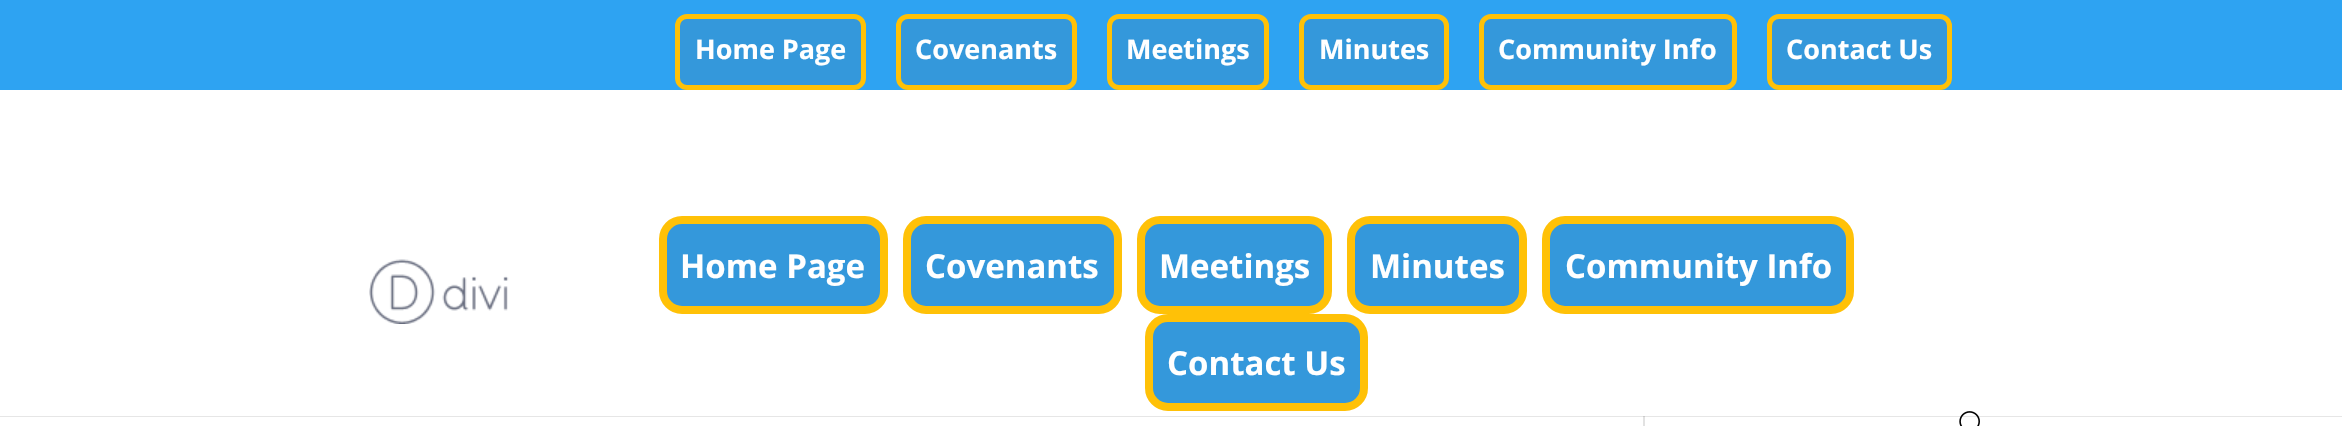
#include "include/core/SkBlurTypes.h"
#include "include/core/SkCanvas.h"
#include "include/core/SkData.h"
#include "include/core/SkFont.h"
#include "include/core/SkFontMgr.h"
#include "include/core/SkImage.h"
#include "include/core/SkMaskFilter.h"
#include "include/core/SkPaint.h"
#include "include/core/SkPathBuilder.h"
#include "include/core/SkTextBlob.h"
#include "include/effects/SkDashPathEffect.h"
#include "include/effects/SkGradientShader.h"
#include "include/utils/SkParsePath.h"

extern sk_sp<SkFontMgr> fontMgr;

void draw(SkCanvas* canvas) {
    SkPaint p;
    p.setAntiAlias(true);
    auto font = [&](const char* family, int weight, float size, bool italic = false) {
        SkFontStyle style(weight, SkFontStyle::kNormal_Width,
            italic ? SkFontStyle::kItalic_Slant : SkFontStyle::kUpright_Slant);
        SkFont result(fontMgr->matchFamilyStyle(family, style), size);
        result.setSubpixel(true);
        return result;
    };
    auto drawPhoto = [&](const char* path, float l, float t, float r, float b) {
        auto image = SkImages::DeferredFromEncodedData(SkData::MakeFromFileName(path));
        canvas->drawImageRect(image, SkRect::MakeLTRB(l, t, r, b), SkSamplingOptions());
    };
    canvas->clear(0xFFFFFFFF);
    p.setColor(0xFFE6E6E6);
    canvas->drawRect(SkRect::MakeLTRB(0, 416, 2342, 417), p);
    p.setColor(0xFF2EA3F2);
    canvas->drawRect(SkRect::MakeLTRB(0, 0, 2342, 90), p);
    p.setColor(0xFF3498DB);
    canvas->drawRoundRect(SkRect::MakeLTRB(677.5f, 16.5f, 863.5f, 87.5f), 9.5f, 9.5f, p);
    p.setStyle(SkPaint::kStroke_Style);
    p.setStrokeWidth(5);
    p.setColor(0xFFFFC107);
    canvas->drawRoundRect(SkRect::MakeLTRB(677.5f, 16.5f, 863.5f, 87.5f), 9.5f, 9.5f, p);
    auto font1 = font("Open Sans", 700, 27);
    p.setStyle(SkPaint::kFill_Style);
    p.setColor(0xFFFFFFFF);
    canvas->drawString("Home Page", 695, 59, font1, p);
    p.setColor(0xFF3498DB);
    canvas->drawRoundRect(SkRect::MakeLTRB(898.5f, 16.5f, 1074.5f, 87.5f), 9.5f, 9.5f, p);
    p.setStyle(SkPaint::kStroke_Style);
    p.setColor(0xFFFFC107);
    canvas->drawRoundRect(SkRect::MakeLTRB(898.5f, 16.5f, 1074.5f, 87.5f), 9.5f, 9.5f, p);
    p.setStyle(SkPaint::kFill_Style);
    p.setColor(0xFFFFFFFF);
    canvas->drawString("Covenants", 915, 59, font1, p);
    p.setColor(0xFF3498DB);
    canvas->drawRoundRect(SkRect::MakeLTRB(1109.5f, 16.5f, 1266.5f, 87.5f), 9.5f, 9.5f, p);
    p.setStyle(SkPaint::kStroke_Style);
    p.setColor(0xFFFFC107);
    canvas->drawRoundRect(SkRect::MakeLTRB(1109.5f, 16.5f, 1266.5f, 87.5f), 9.5f, 9.5f, p);
    p.setStyle(SkPaint::kFill_Style);
    p.setColor(0xFFFFFFFF);
    canvas->drawString("Meetings", 1126, 59, font1, p);
    p.setColor(0xFF3498DB);
    canvas->drawRoundRect(SkRect::MakeLTRB(1301.5f, 16.5f, 1446.5f, 87.5f), 9.5f, 9.5f, p);
    p.setStyle(SkPaint::kStroke_Style);
    p.setColor(0xFFFFC107);
    canvas->drawRoundRect(SkRect::MakeLTRB(1301.5f, 16.5f, 1446.5f, 87.5f), 9.5f, 9.5f, p);
    p.setStyle(SkPaint::kFill_Style);
    p.setColor(0xFFFFFFFF);
    canvas->drawString("Minutes", 1319, 59, font1, p);
    p.setColor(0xFF3498DB);
    canvas->drawRoundRect(SkRect::MakeLTRB(1481.5f, 16.5f, 1734.5f, 87.5f), 9.5f, 9.5f, p);
    p.setStyle(SkPaint::kStroke_Style);
    p.setColor(0xFFFFC107);
    canvas->drawRoundRect(SkRect::MakeLTRB(1481.5f, 16.5f, 1734.5f, 87.5f), 9.5f, 9.5f, p);
    p.setStyle(SkPaint::kFill_Style);
    p.setColor(0xFFFFFFFF);
    canvas->drawString("Community Info", 1498, 59, font1, p);
    p.setColor(0xFF3498DB);
    canvas->drawRoundRect(SkRect::MakeLTRB(1769.5f, 16.5f, 1949.5f, 87.5f), 9.5f, 9.5f, p);
    p.setStyle(SkPaint::kStroke_Style);
    p.setColor(0xFFFFC107);
    canvas->drawRoundRect(SkRect::MakeLTRB(1769.5f, 16.5f, 1949.5f, 87.5f), 9.5f, 9.5f, p);
    p.setStyle(SkPaint::kFill_Style);
    p.setColor(0xFFFFFFFF);
    canvas->drawString("Contact Us", 1786, 59, font1, p);
    p.setColor(0xFFE2E2E2);
    canvas->drawRect(SkRect::MakeLTRB(1643, 414, 1645, 426), p);
    p.setColor(0xFFFFFFFF);
    canvas->drawRect(SkRect::MakeLTRB(1643, 414, 1645, 416), p);
    drawPhoto("media/1.png", 369, 259, 509, 324);
    p.setColor(0xFF3498DB);
    canvas->drawRoundRect(SkRect::MakeLTRB(663, 220, 884, 310), 19, 19, p);
    p.setStyle(SkPaint::kStroke_Style);
    p.setStrokeWidth(8);
    p.setColor(0xFFFFC107);
    canvas->drawRoundRect(SkRect::MakeLTRB(663, 220, 884, 310), 19, 19, p);
    auto font2 = font("Open Sans", 700, 33);
    p.setStyle(SkPaint::kFill_Style);
    p.setColor(0xFFFFFFFF);
    canvas->drawString("Home Page", 680, 278, font2, p);
    p.setColor(0xFF3498DB);
    canvas->drawRoundRect(SkRect::MakeLTRB(907, 220, 1118, 310), 19, 19, p);
    p.setStyle(SkPaint::kStroke_Style);
    p.setColor(0xFFFFC107);
    canvas->drawRoundRect(SkRect::MakeLTRB(907, 220, 1118, 310), 19, 19, p);
    p.setStyle(SkPaint::kFill_Style);
    p.setColor(0xFFFFFFFF);
    canvas->drawString("Covenants", 925, 278, font2, p);
    p.setColor(0xFF3498DB);
    canvas->drawRoundRect(SkRect::MakeLTRB(1141, 220, 1328, 310), 19, 19, p);
    p.setStyle(SkPaint::kStroke_Style);
    p.setColor(0xFFFFC107);
    canvas->drawRoundRect(SkRect::MakeLTRB(1141, 220, 1328, 310), 19, 19, p);
    p.setStyle(SkPaint::kFill_Style);
    p.setColor(0xFFFFFFFF);
    canvas->drawString("Meetings", 1159, 278, font2, p);
    p.setColor(0xFF3498DB);
    canvas->drawRoundRect(SkRect::MakeLTRB(1351, 220, 1523, 310), 19, 19, p);
    p.setStyle(SkPaint::kStroke_Style);
    p.setColor(0xFFFFC107);
    canvas->drawRoundRect(SkRect::MakeLTRB(1351, 220, 1523, 310), 19, 19, p);
    p.setStyle(SkPaint::kFill_Style);
    p.setColor(0xFFFFFFFF);
    canvas->drawString("Minutes", 1370, 278, font2, p);
    p.setColor(0xFF3498DB);
    canvas->drawRoundRect(SkRect::MakeLTRB(1546, 220, 1850, 310), 19, 19, p);
    p.setStyle(SkPaint::kStroke_Style);
    p.setColor(0xFFFFC107);
    canvas->drawRoundRect(SkRect::MakeLTRB(1546, 220, 1850, 310), 19, 19, p);
    p.setStyle(SkPaint::kFill_Style);
    p.setColor(0xFFFFFFFF);
    canvas->drawString("Community Info", 1565, 278, font2, p);
    p.setColor(0xFF3498DB);
    canvas->drawRoundRect(SkRect::MakeLTRB(1149, 318, 1364, 407), 19, 19, p);
    p.setStyle(SkPaint::kStroke_Style);
    p.setColor(0xFFFFC107);
    canvas->drawRoundRect(SkRect::MakeLTRB(1149, 318, 1364, 407), 19, 19, p);
    p.setStyle(SkPaint::kFill_Style);
    p.setColor(0xFFFFFFFF);
    canvas->drawString("Contact Us", 1167, 375, font2, p);
    drawPhoto("media/2.png", 1959, 411, 1980, 426);
    p.setColor(0xFFCBCBCB);
    canvas->drawRect(SkRect::MakeLTRB(1643, 416, 1645, 417), p);
}
